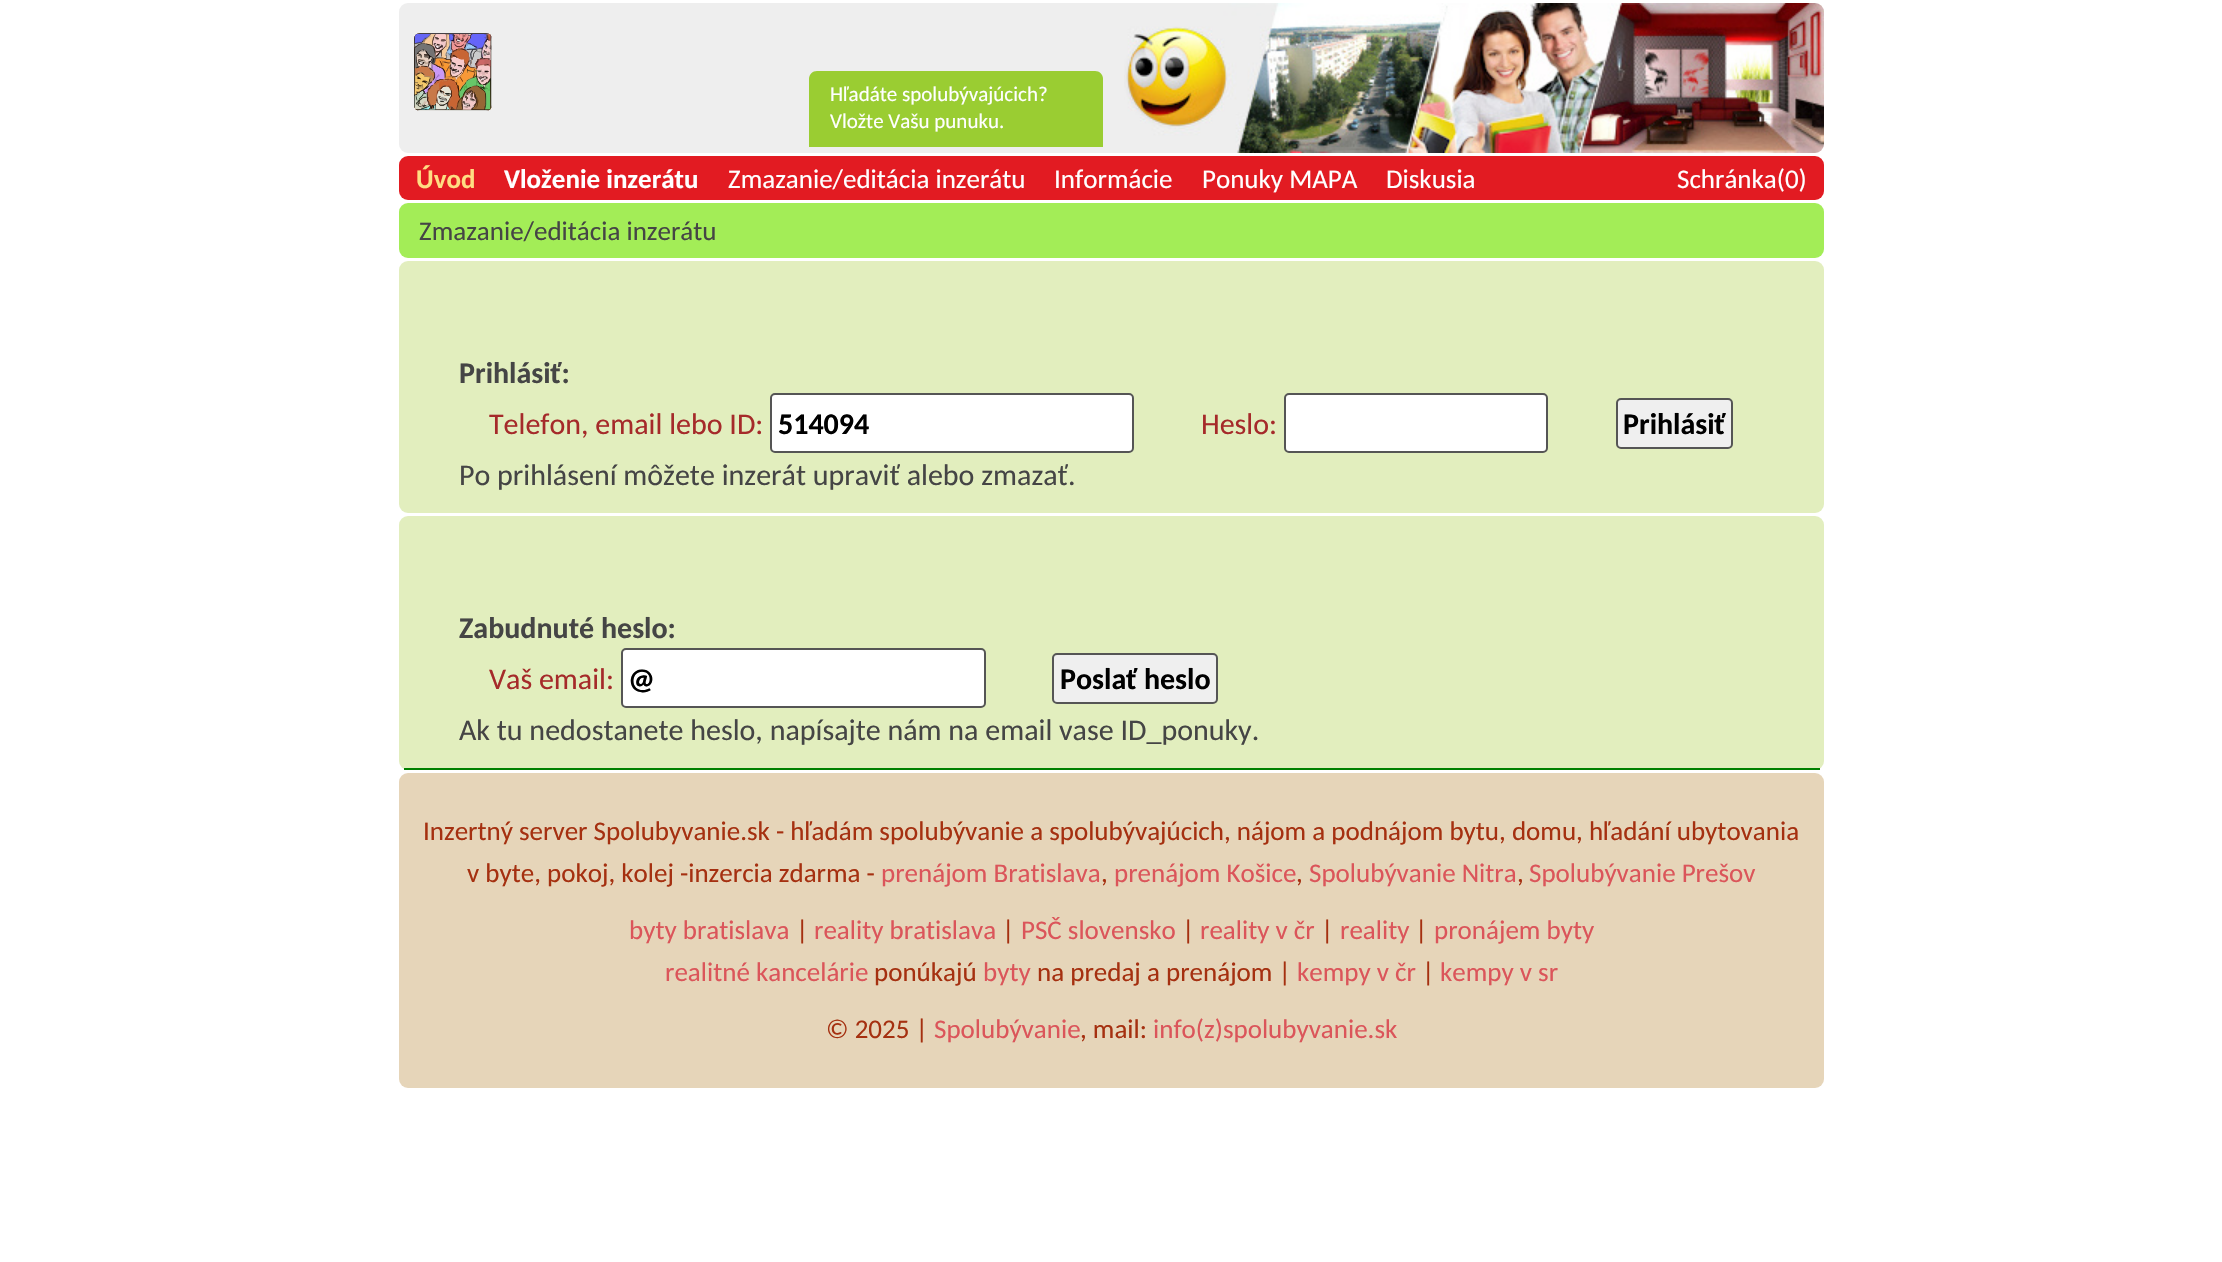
#include "include/core/SkBlurTypes.h"
#include "include/core/SkCanvas.h"
#include "include/core/SkData.h"
#include "include/core/SkFont.h"
#include "include/core/SkFontMgr.h"
#include "include/core/SkImage.h"
#include "include/core/SkMaskFilter.h"
#include "include/core/SkPaint.h"
#include "include/core/SkPathBuilder.h"
#include "include/core/SkTextBlob.h"
#include "include/effects/SkDashPathEffect.h"
#include "include/effects/SkGradientShader.h"
#include "include/utils/SkParsePath.h"

extern sk_sp<SkFontMgr> fontMgr;

void draw(SkCanvas* canvas) {
    SkPaint p;
    p.setAntiAlias(true);
    auto font = [&](const char* family, int weight, float size, bool italic = false) {
        SkFontStyle style(weight, SkFontStyle::kNormal_Width,
            italic ? SkFontStyle::kItalic_Slant : SkFontStyle::kUpright_Slant);
        SkFont result(fontMgr->matchFamilyStyle(family, style), size);
        result.setSubpixel(true);
        return result;
    };
    auto drawPhoto = [&](const char* path, float l, float t, float r, float b) {
        auto image = SkImages::DeferredFromEncodedData(SkData::MakeFromFileName(path));
        canvas->drawImageRect(image, SkRect::MakeLTRB(l, t, r, b), SkSamplingOptions());
    };
    canvas->clear(0xFFFFFFFF);
    p.setColor(0xFFEEEEEE);
    canvas->drawRoundRect(SkRect::MakeLTRB(399, 3, 1824, 153), 9, 9, p);
    drawPhoto("media/1.png", 1124, 3, 1824, 153);
    drawPhoto("media/2.png", 414, 33, 492, 111);
    p.setColor(0xFF9ACD32);
    canvas->drawPath(SkPathBuilder().moveTo(817, 71).lineTo(1095, 71).cubicTo(1099.5f, 71, 1103, 74.5f, 1103, 79).lineTo(1103, 147).lineTo(809, 147).lineTo(809, 79).cubicTo(809, 74.5f, 812.5f, 71, 817, 71).close().detach(), p);
    auto font1 = font("Carlito", 400, 21);
    p.setColor(0xFFFFFFFF);
    canvas->drawString("Hľadáte spolubývajúcich?", 830, 101, font1, p);
    canvas->drawString("Vložte Vašu punuku.", 830, 128, font1, p);
    p.setColor(0xFFE21B22);
    canvas->drawRoundRect(SkRect::MakeLTRB(399, 156, 1824, 200), 9, 9, p);
    auto font2 = font("Carlito", 700, 27);
    p.setColor(0xFFFFDD83);
    canvas->drawString("Úvod", 416, 188, font2, p);
    p.setColor(0xFFFFFFFF);
    canvas->drawString("Vloženie inzerátu", 504, 188, font2, p);
    auto font3 = font("Carlito", 400, 27);
    {
        const struct { const char* s; float x, y; } items[] = {
            {"Zmazanie/editácia inzerátu", 728, 188},
            {"Informácie", 1054, 188},
            {"Ponuky MAPA", 1202, 188},
            {"Diskusia", 1386, 188},
            {"Schránka(0)", 1677, 188},
        };
        for (auto [s, x, y] : items) {
            canvas->drawString(s, x, y, font3, p);
        }
    }
    p.setColor(0xFFA3ED57);
    canvas->drawRoundRect(SkRect::MakeLTRB(399, 203, 1824, 258), 9, 9, p);
    p.setColor(0xFF454545);
    canvas->drawString("Zmazanie/editácia inzerátu", 419, 240, font3, p);
    p.setColor(0xFFE2EEBE);
    canvas->drawRoundRect(SkRect::MakeLTRB(399, 261, 1824, 513), 9, 9, p);
    auto font4 = font("Carlito", 700, 30);
    p.setColor(0xFF454545);
    canvas->drawString("Prihlásiť:", 459, 383, font4, p);
    auto font5 = font("Carlito", 400, 30);
    p.setColor(0xFFA52A2A);
    canvas->drawString("Telefon, email lebo ID:", 489, 434, font5, p);
    p.setColor(0xFFFFFFFF);
    canvas->drawRoundRect(SkRect::MakeLTRB(771, 394, 1133, 452), 4, 4, p);
    p.setStyle(SkPaint::kStroke_Style);
    p.setStrokeWidth(2);
    p.setColor(0xFF555555);
    canvas->drawRoundRect(SkRect::MakeLTRB(771, 394, 1133, 452), 4, 4, p);
    p.setStyle(SkPaint::kFill_Style);
    p.setColor(0xFF000000);
    canvas->drawString("514094", 778, 434, font4, p);
    p.setColor(0xFFA52A2A);
    canvas->drawString("Heslo:", 1201, 434, font5, p);
    p.setColor(0xFFFFFFFF);
    canvas->drawRoundRect(SkRect::MakeLTRB(1285, 394, 1547, 452), 4, 4, p);
    p.setStyle(SkPaint::kStroke_Style);
    p.setColor(0xFF555555);
    canvas->drawRoundRect(SkRect::MakeLTRB(1285, 394, 1547, 452), 4, 4, p);
    p.setStyle(SkPaint::kFill_Style);
    p.setColor(0xFFEFEFEF);
    canvas->drawRoundRect(SkRect::MakeLTRB(1617, 399, 1732, 448), 4, 4, p);
    p.setStyle(SkPaint::kStroke_Style);
    p.setColor(0xFF555555);
    canvas->drawRoundRect(SkRect::MakeLTRB(1617, 399, 1732, 448), 4, 4, p);
    p.setStyle(SkPaint::kFill_Style);
    p.setColor(0xFF000000);
    canvas->drawString("Prihlásiť", 1623, 434, font4, p);
    p.setColor(0xFF454545);
    canvas->drawString("Po prihlásení môžete inzerát upraviť alebo zmazať.", 459, 485, font5, p);
    p.setColor(0xFFE2EEBE);
    canvas->drawRoundRect(SkRect::MakeLTRB(399, 516, 1824, 770), 9, 9, p);
    p.setColor(0xFF008000);
    canvas->drawRect(SkRect::MakeLTRB(404, 768, 1820, 770), p);
    p.setColor(0xFF454545);
    canvas->drawString("Zabudnuté heslo:", 459, 638, font4, p);
    p.setColor(0xFFA52A2A);
    canvas->drawString("Vaš email:", 489, 689, font5, p);
    p.setColor(0xFFFFFFFF);
    canvas->drawRoundRect(SkRect::MakeLTRB(622, 649, 985, 707), 4, 4, p);
    p.setStyle(SkPaint::kStroke_Style);
    p.setColor(0xFF555555);
    canvas->drawRoundRect(SkRect::MakeLTRB(622, 649, 985, 707), 4, 4, p);
    p.setStyle(SkPaint::kFill_Style);
    p.setColor(0xFF000000);
    canvas->drawString("@", 628, 689, font4, p);
    p.setColor(0xFFEFEFEF);
    canvas->drawRoundRect(SkRect::MakeLTRB(1053, 654, 1217, 703), 4, 4, p);
    p.setStyle(SkPaint::kStroke_Style);
    p.setColor(0xFF555555);
    canvas->drawRoundRect(SkRect::MakeLTRB(1053, 654, 1217, 703), 4, 4, p);
    p.setStyle(SkPaint::kFill_Style);
    p.setColor(0xFF000000);
    canvas->drawString("Poslať heslo", 1060, 689, font4, p);
    p.setColor(0xFF454545);
    canvas->drawString("Ak tu nedostanete heslo, napísajte nám na email vase ID_ponuky.", 459, 740, font5, p);
    p.setColor(0xFFE6D5B9);
    canvas->drawRoundRect(SkRect::MakeLTRB(399, 773, 1824, 1088), 9, 9, p);
    p.setColor(0xFFA53010);
    canvas->drawString("Inzertný server Spolubyvanie.sk - hľadám spolubývanie a spolubývajúcich, nájom a podnájom bytu, domu, hľadání ubytovania", 423, 840, font3, p);
    canvas->drawString("v byte, pokoj, kolej -inzercia zdarma -", 467, 882, font3, p);
    p.setColor(0xFFDB555A);
    canvas->drawString("prenájom Bratislava", 881, 882, font3, p);
    p.setColor(0xFFA53010);
    canvas->drawString(",", 1101, 882, font3, p);
    p.setColor(0xFFDB555A);
    canvas->drawString("prenájom Košice", 1114, 882, font3, p);
    p.setColor(0xFFA53010);
    canvas->drawString(",", 1296, 882, font3, p);
    p.setColor(0xFFDB555A);
    canvas->drawString("Spolubývanie Nitra", 1309, 882, font3, p);
    p.setColor(0xFFA53010);
    canvas->drawString(",", 1517, 882, font3, p);
    p.setColor(0xFFDB555A);
    canvas->drawString("Spolubývanie Prešov", 1529, 882, font3, p);
    canvas->drawString("byty bratislava", 629, 939, font3, p);
    p.setColor(0xFFA53010);
    canvas->drawString("|", 796, 939, font3, p);
    p.setColor(0xFFDB555A);
    canvas->drawString("reality bratislava", 814, 939, font3, p);
    p.setColor(0xFFA53010);
    canvas->drawString("|", 1002, 939, font3, p);
    p.setColor(0xFFDB555A);
    canvas->drawString("PSČ slovensko", 1021, 939, font3, p);
    p.setColor(0xFFA53010);
    canvas->drawString("|", 1182, 939, font3, p);
    p.setColor(0xFFDB555A);
    canvas->drawString("reality v čr", 1200, 939, font3, p);
    p.setColor(0xFFA53010);
    canvas->drawString("|", 1321, 939, font3, p);
    p.setColor(0xFFDB555A);
    canvas->drawString("reality", 1340, 939, font3, p);
    p.setColor(0xFFA53010);
    canvas->drawString("|", 1415, 939, font3, p);
    p.setColor(0xFFDB555A);
    canvas->drawString("pronájem byty", 1434, 939, font3, p);
    canvas->drawString("realitné kancelárie", 665, 981, font3, p);
    p.setColor(0xFFA53010);
    canvas->drawString("ponúkajú", 874, 981, font3, p);
    p.setColor(0xFFDB555A);
    canvas->drawString("byty", 983, 981, font3, p);
    p.setColor(0xFFA53010);
    canvas->drawString("na predaj a prenájom |", 1037, 981, font3, p);
    p.setColor(0xFFDB555A);
    canvas->drawString("kempy v čr", 1297, 981, font3, p);
    p.setColor(0xFFA53010);
    canvas->drawString("|", 1422, 981, font3, p);
    p.setColor(0xFFDB555A);
    canvas->drawString("kempy v sr", 1440, 981, font3, p);
    p.setColor(0xFFA53010);
    canvas->drawString("© 2025 |", 826, 1038, font3, p);
    p.setColor(0xFFDB555A);
    canvas->drawString("Spolubývanie", 934, 1038, font3, p);
    p.setColor(0xFFA53010);
    canvas->drawString(", mail:", 1080, 1038, font3, p);
    p.setColor(0xFFDB555A);
    canvas->drawString("info(z)spolubyvanie.sk", 1153, 1038, font3, p);
}
